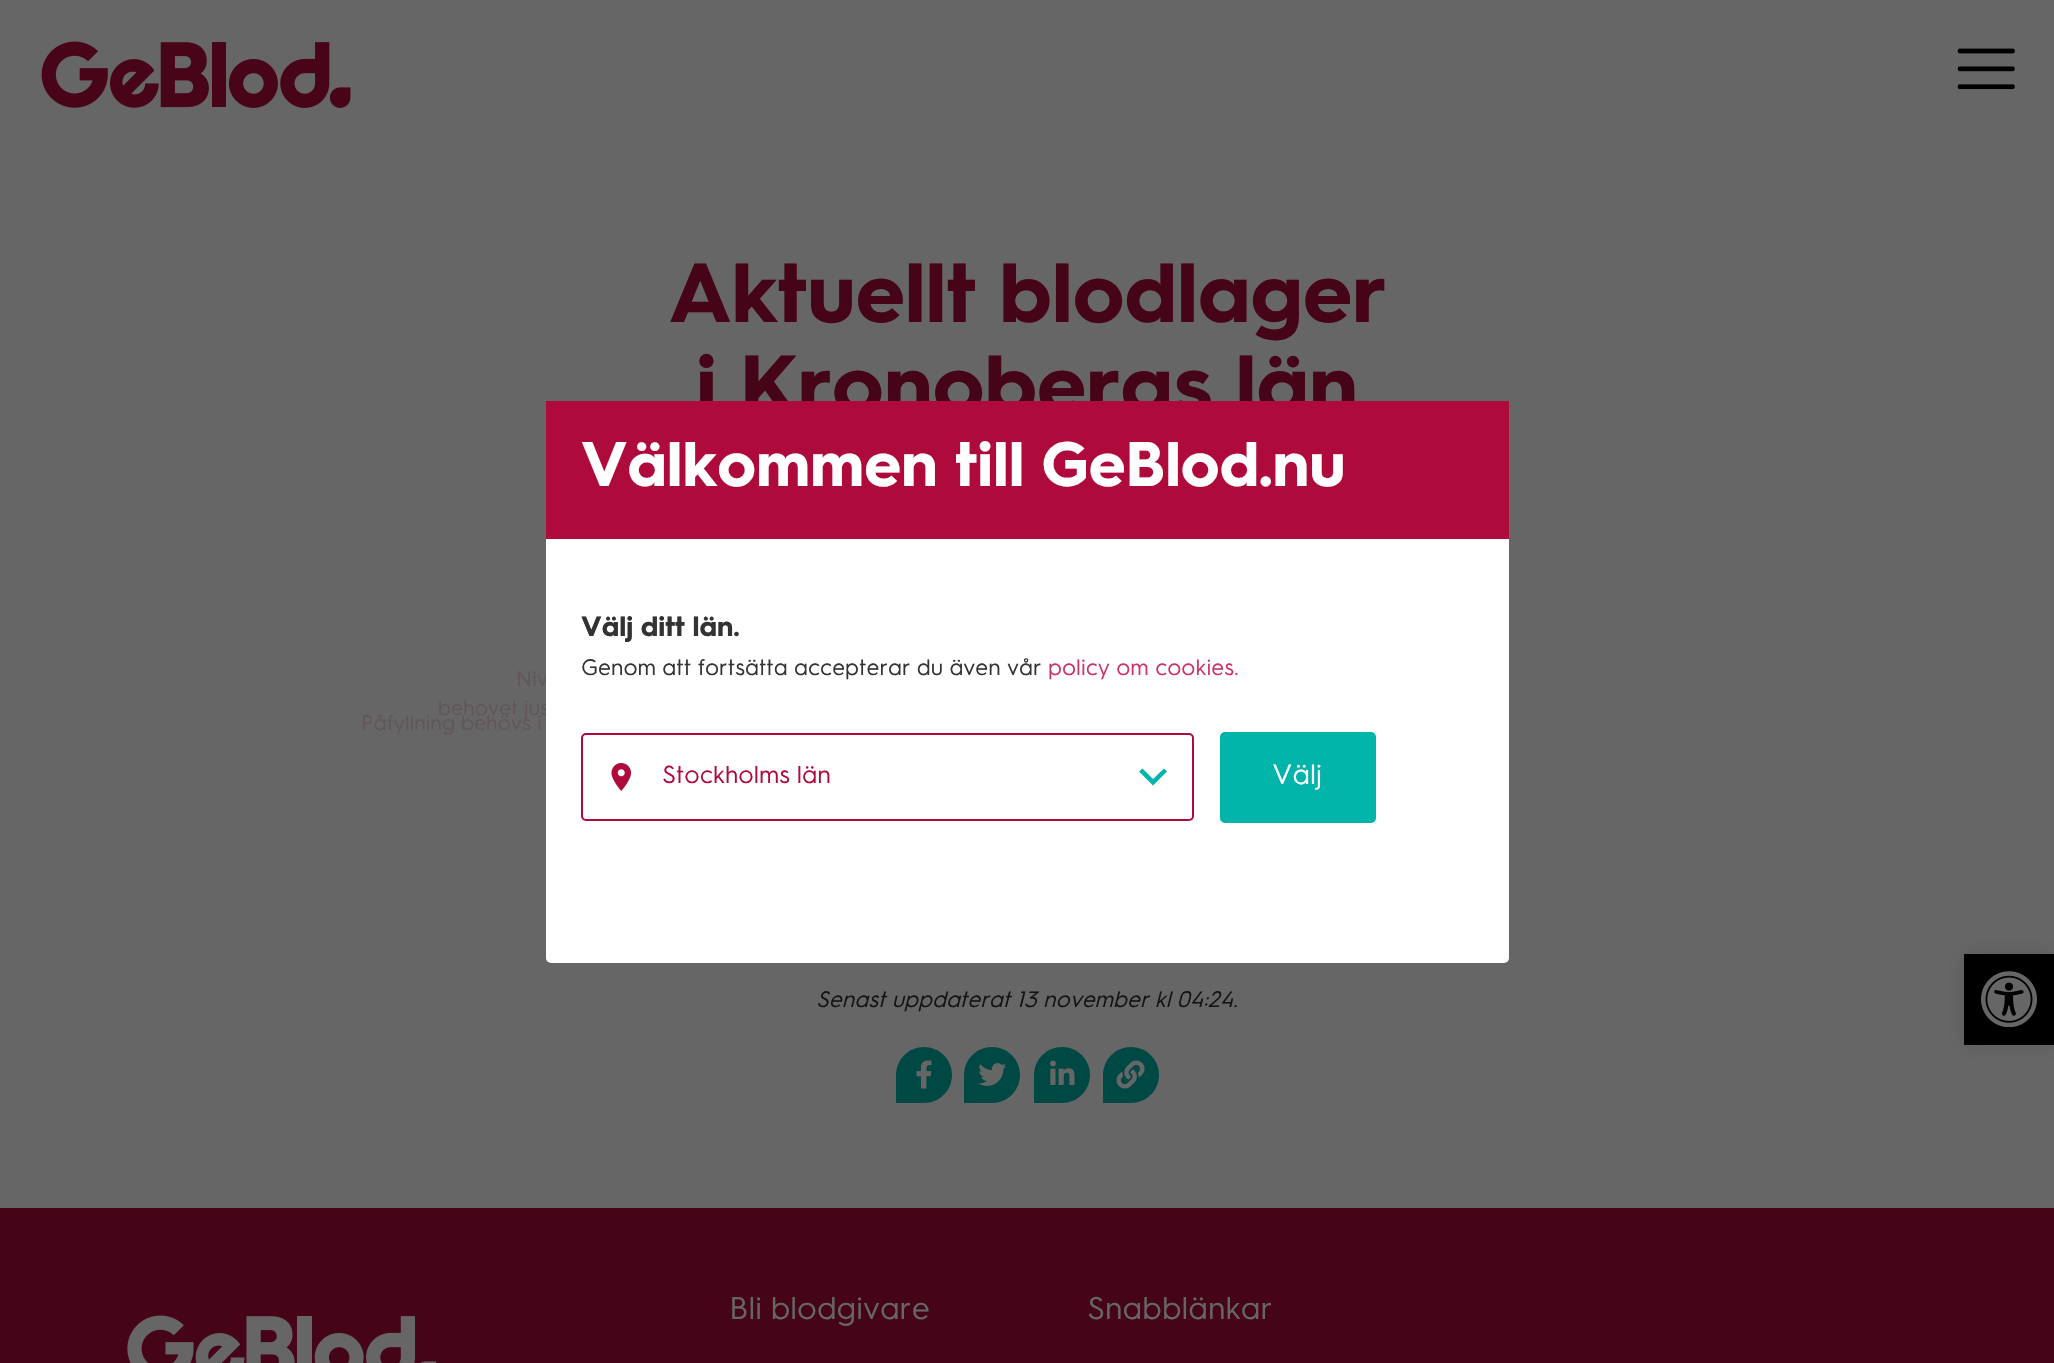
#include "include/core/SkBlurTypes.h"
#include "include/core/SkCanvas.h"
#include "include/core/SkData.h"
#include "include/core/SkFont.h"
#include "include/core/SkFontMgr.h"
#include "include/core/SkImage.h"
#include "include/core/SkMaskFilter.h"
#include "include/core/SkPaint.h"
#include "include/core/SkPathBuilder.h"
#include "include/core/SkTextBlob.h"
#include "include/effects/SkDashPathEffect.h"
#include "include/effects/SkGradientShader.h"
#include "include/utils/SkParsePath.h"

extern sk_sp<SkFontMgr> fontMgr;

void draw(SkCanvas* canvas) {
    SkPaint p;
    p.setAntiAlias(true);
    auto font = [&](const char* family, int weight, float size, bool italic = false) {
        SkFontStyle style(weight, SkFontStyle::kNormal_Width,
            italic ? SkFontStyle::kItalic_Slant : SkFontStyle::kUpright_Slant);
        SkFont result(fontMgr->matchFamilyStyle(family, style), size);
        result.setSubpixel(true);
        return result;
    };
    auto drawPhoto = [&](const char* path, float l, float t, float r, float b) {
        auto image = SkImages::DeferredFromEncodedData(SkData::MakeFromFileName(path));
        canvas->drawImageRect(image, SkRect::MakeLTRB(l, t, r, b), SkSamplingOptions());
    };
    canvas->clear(0xFF666666);
    drawPhoto("media/1.png", 41, 41, 351, 108);
    drawPhoto("media/2.png", 1957, 48, 2015, 90);
    auto font1 = font("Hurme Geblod", 400, 84);
    p.setColor(0xFF460418);
    canvas->drawString("Aktuellt blodlager", 669, 322, font1, p);
    canvas->drawString("i Kronobergs län", 696, 414, font1, p);
    auto font2 = font("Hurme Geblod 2", 400, 21);
    p.setColor(0xFF615659);
    {
        const struct { const char* s; float x, y; } items[] = {
            {"Niv", 516, 686},
            {"behovet jus", 438, 715},
            {"Påfyllning behövs i", 361, 730},
        };
        for (auto [s, x, y] : items) {
            canvas->drawString(s, x, y, font2, p);
        }
    }
    auto font3 = font("Hurme Geblod", 400, 22.4f, true);
    p.setColor(0xFF141414);
    canvas->drawString("Senast uppdaterat 13 november kl 04:24.", 816, 1007, font3, p);
    p.setColor(0xFF004844);
    canvas->drawPath(SkPathBuilder().moveTo(924, 1047).cubicTo(939.5f, 1047, 952, 1059.5f, 952, 1075).cubicTo(952, 1090.5f, 939.5f, 1103, 924, 1103).lineTo(896, 1103).lineTo(896, 1075).cubicTo(896, 1059.5f, 908.5f, 1047, 924, 1047).close().detach(), p);
    drawPhoto("media/3.png", 916, 1060, 932, 1089);
    canvas->drawPath(SkPathBuilder().moveTo(992, 1047).cubicTo(1007.5f, 1047, 1020, 1059.5f, 1020, 1075).cubicTo(1020, 1090.5f, 1007.5f, 1103, 992, 1103).lineTo(964, 1103).lineTo(964, 1075).cubicTo(964, 1059.5f, 976.5f, 1047, 992, 1047).close().detach(), p);
    drawPhoto("media/4.png", 978, 1063, 1007, 1086);
    canvas->drawPath(SkPathBuilder().moveTo(1062, 1047).cubicTo(1077.5f, 1047, 1090, 1059.5f, 1090, 1075).cubicTo(1090, 1090.5f, 1077.5f, 1103, 1062, 1103).lineTo(1034, 1103).lineTo(1034, 1075).cubicTo(1034, 1059.5f, 1046.5f, 1047, 1062, 1047).close().detach(), p);
    drawPhoto("media/5.png", 1050, 1060, 1075, 1085);
    canvas->drawPath(SkPathBuilder().moveTo(1131, 1047).cubicTo(1146.5f, 1047, 1159, 1059.5f, 1159, 1075).cubicTo(1159, 1090.5f, 1146.5f, 1103, 1131, 1103).lineTo(1103, 1103).lineTo(1103, 1075).cubicTo(1103, 1059.5f, 1115.5f, 1047, 1131, 1047).close().detach(), p);
    drawPhoto("media/6.png", 1116, 1060, 1145, 1089);
    p.setColor(0xFFFFFFFF);
    canvas->drawRoundRect(SkRect::MakeLTRB(546, 401, 1509, 963), 5, 5, p);
    p.setColor(0xFFAF0A3C);
    canvas->drawRect(SkRect::MakeLTRB(546, 401, 1509, 539), p);
    auto font4 = font("Hurme Geblod", 400, 63);
    p.setColor(0xFFFFFFFF);
    canvas->drawString("Välkommen till GeBlod.nu", 581, 486, font4, p);
    auto font5 = font("Hurme Geblod", 400, 28);
    p.setColor(0xFF333333);
    canvas->drawString("Välj ditt län.", 581, 636, font5, p);
    auto font6 = font("Hurme Geblod 2", 400, 22.4f);
    canvas->drawString("Genom att fortsätta accepterar du även vår", 581, 675, font6, p);
    p.setColor(0xFFCC3366);
    canvas->drawString("policy om cookies.", 1048, 675, font6, p);
    drawPhoto("media/7.png", 611, 763, 631, 791);
    p.setColor(0xFF00B4AA);
    canvas->drawPath(SkPathBuilder().moveTo(1164, 768.5f).lineTo(1153, 779).lineTo(1142.5f, 768.5f).lineTo(1139, 771.5f).lineTo(1153, 785.5f).lineTo(1167, 771.5f).close().detach(), p);
    p.setStyle(SkPaint::kStroke_Style);
    p.setStrokeWidth(2);
    p.setColor(0xFFAF0A3C);
    canvas->drawRoundRect(SkRect::MakeLTRB(582, 734, 1193, 820), 4, 4, p);
    auto font7 = font("Hurme Geblod 2", 400, 24.5f);
    p.setStyle(SkPaint::kFill_Style);
    canvas->drawString("Stockholms län", 662, 783, font7, p);
    p.setColor(0xFF00B4AA);
    canvas->drawRoundRect(SkRect::MakeLTRB(1220, 732, 1376, 823), 5, 5, p);
    auto font8 = font("Hurme Geblod 2", 400, 28);
    p.setColor(0xFFFFFFFF);
    canvas->drawString("Välj", 1272, 784, font8, p);
    p.setColor(0x1A000000);
    p.setMaskFilter(SkMaskFilter::MakeBlur(kNormal_SkBlurStyle, 9));
    canvas->drawRect(SkRect::MakeLTRB(1964, 954, 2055, 1045), p);
    p.setMaskFilter(nullptr);
    p.setColor(0xFF000000);
    canvas->drawRect(SkRect::MakeLTRB(1964, 954, 2054, 1045), p);
    drawPhoto("media/8.png", 1981, 971, 2037, 1027);
    p.setColor(0xFF460418);
    canvas->drawRect(SkRect::MakeLTRB(0, 1208, 2054, 1363), p);
    auto font9 = font("Hurme Geblod 2", 400, 31.5f);
    p.setColor(0xFF666666);
    canvas->drawString("Bli blodgivare", 729, 1319, font9, p);
    canvas->drawString("Snabblänkar", 1087, 1319, font9, p);
    drawPhoto("media/9.png", 127, 1315, 437, 1363);
}
